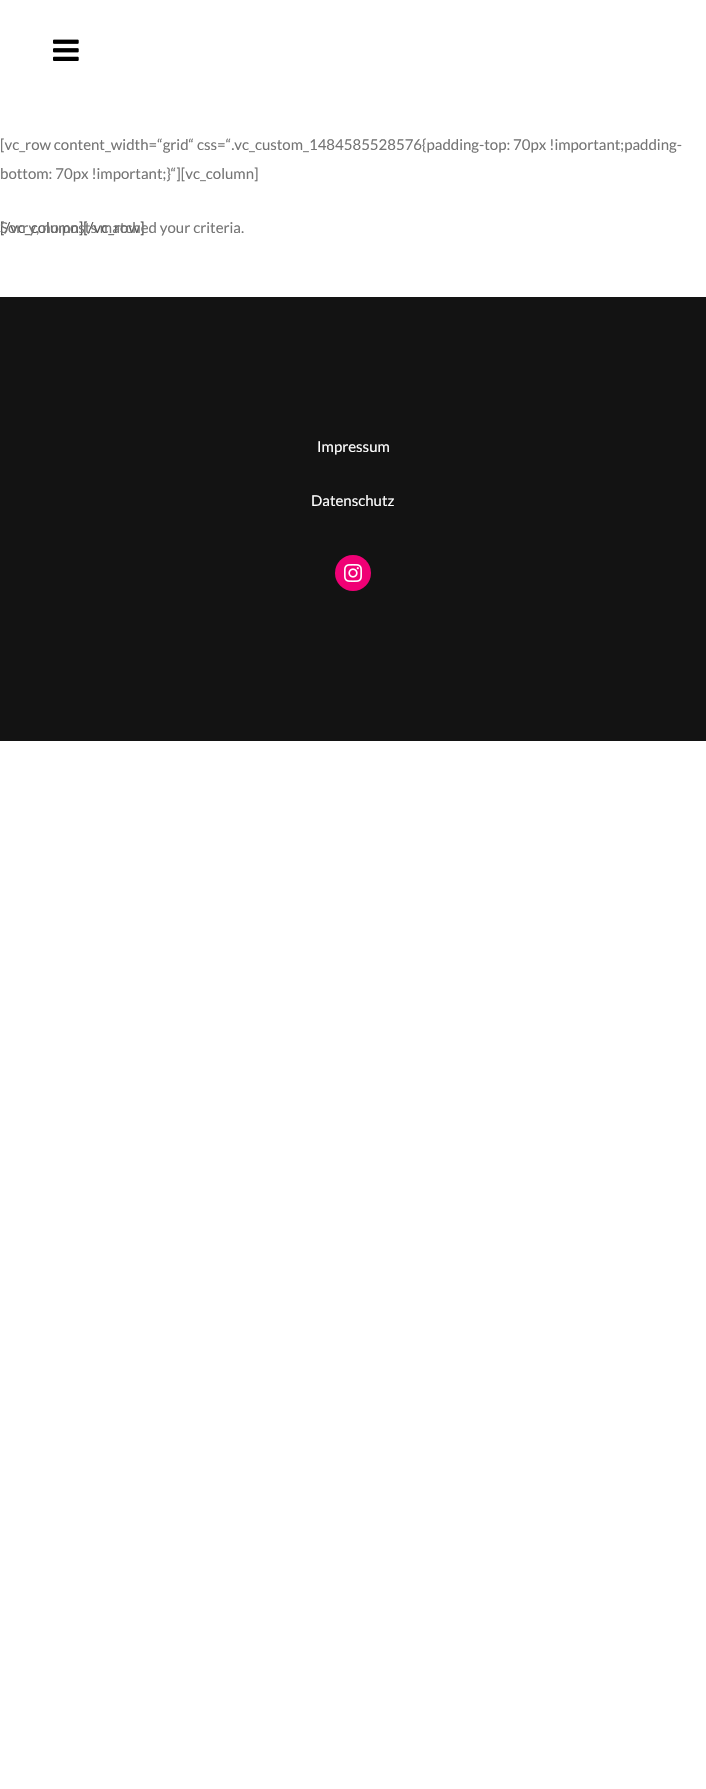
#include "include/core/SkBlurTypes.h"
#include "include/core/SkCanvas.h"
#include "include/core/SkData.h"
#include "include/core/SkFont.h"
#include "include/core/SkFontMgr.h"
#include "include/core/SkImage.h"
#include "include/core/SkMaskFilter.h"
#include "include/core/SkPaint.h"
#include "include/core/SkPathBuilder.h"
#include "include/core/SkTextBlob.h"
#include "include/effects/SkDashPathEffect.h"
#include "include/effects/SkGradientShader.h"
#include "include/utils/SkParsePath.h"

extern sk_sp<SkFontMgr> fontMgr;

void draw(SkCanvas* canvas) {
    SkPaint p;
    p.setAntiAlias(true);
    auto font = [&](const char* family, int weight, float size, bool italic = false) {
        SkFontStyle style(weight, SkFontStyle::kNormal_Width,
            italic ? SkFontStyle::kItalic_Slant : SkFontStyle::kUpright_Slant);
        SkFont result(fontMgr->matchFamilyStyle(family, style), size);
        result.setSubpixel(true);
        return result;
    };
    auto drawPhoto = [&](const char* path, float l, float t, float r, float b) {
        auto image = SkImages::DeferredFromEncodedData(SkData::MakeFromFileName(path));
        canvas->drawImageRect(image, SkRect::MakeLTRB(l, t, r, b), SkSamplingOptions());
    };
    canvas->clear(0xFFFFFFFF);
    drawPhoto("media/1.png", 53, 39, 79, 61);
    auto font1 = font("Lato", 400, 15);
    p.setColor(0xFF757575);
    canvas->drawString("[vc_row content_width=“grid“ css=“.vc_custom_1484585528576{padding-top: 70px !important;padding-", 0, 150, font1, p);
    canvas->drawString("bottom: 70px !important;}“][vc_column]", 0, 179, font1, p);
    p.setColor(0xFF565656);
    canvas->drawString("[/vc_column][/vc_row]", 0, 233, font1, p);
    p.setColor(0xFF757575);
    canvas->drawString("Sorry, no posts matched your criteria.", 0, 233, font1, p);
    p.setColor(0xFF131313);
    canvas->drawRect(SkRect::MakeLTRB(0, 297, 706, 741), p);
    p.setColor(0xFFFFFFFF);
    canvas->drawString("Impressum", 317, 452, font1, p);
    canvas->drawString("Datenschutz", 311, 506, font1, p);
    p.setColor(0xFFF00075);
    canvas->drawCircle(353, 573, 18, p);
    drawPhoto("media/2.png", 344, 564, 362, 582);
}
